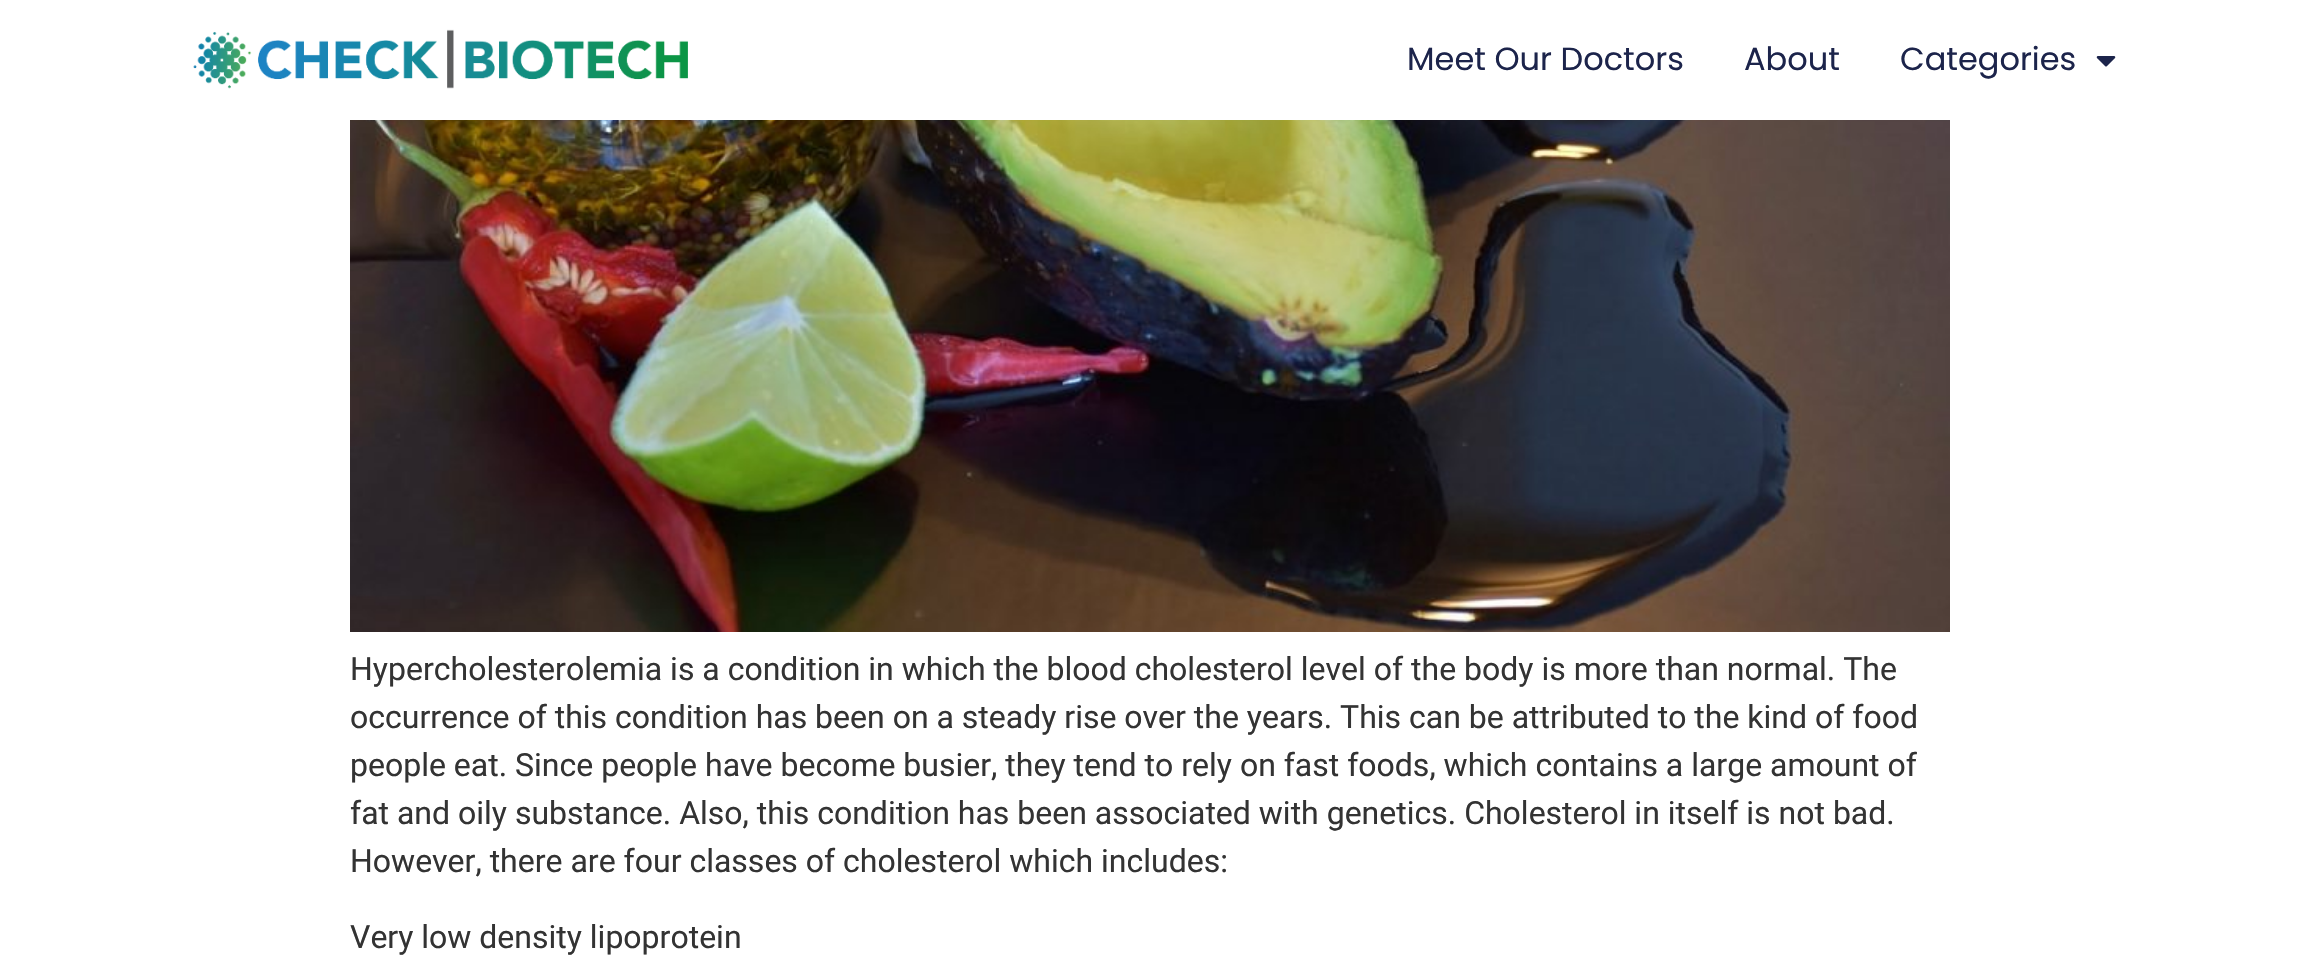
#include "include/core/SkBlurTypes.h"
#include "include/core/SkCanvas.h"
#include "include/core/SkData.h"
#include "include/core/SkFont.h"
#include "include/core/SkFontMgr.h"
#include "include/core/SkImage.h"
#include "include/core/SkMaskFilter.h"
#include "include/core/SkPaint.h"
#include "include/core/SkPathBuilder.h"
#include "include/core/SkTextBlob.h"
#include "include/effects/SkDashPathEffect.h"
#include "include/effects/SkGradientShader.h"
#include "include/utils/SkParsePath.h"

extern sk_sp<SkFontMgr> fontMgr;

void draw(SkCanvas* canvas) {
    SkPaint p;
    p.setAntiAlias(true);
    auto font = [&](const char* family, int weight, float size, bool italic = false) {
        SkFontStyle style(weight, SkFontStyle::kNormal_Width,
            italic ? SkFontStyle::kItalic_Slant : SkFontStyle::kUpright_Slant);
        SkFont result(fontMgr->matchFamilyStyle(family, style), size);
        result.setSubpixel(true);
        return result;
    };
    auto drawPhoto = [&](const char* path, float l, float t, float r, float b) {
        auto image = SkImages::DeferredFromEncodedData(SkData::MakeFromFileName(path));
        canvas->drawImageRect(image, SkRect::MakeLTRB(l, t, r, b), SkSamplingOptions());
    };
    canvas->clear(0xFFFFFFFF);
    drawPhoto("media/1.png", 193, 29, 688, 89);
    auto font1 = font("Poppins", 400, 32);
    p.setColor(0xFF1C244B);
    {
        const struct { const char* s; float x, y; } items[] = {
            {"Meet Our Doctors", 1407, 70},
            {"About", 1744, 70},
            {"Categories", 1900, 70},
        };
        for (auto [s, x, y] : items) {
            canvas->drawString(s, x, y, font1, p);
        }
    }
    drawPhoto("media/2.png", 2096, 56, 2116, 67);
    drawPhoto("media/3.png", 350, 120, 1950, 632);
    auto font2 = font("Roboto", 400, 32);
    p.setColor(0xFF333333);
    {
        const struct { const char* s; float x, y; } items[] = {
            {"Hypercholesterolemia is a condition in which the blood cholesterol level of the body is more than normal. The", 350, 680},
            {"occurrence of this condition has been on a steady rise over the years. This can be attributed to the kind of food", 350, 728},
            {"people eat. Since people have become busier, they tend to rely on fast foods, which contains a large amount of", 350, 776},
            {"fat and oily substance. Also, this condition has been associated with genetics. Cholesterol in itself is not bad.", 350, 824},
            {"However, there are four classes of cholesterol which includes:", 350, 872},
            {"Very low density lipoprotein", 350, 948},
        };
        for (auto [s, x, y] : items) {
            canvas->drawString(s, x, y, font2, p);
        }
    }
}
